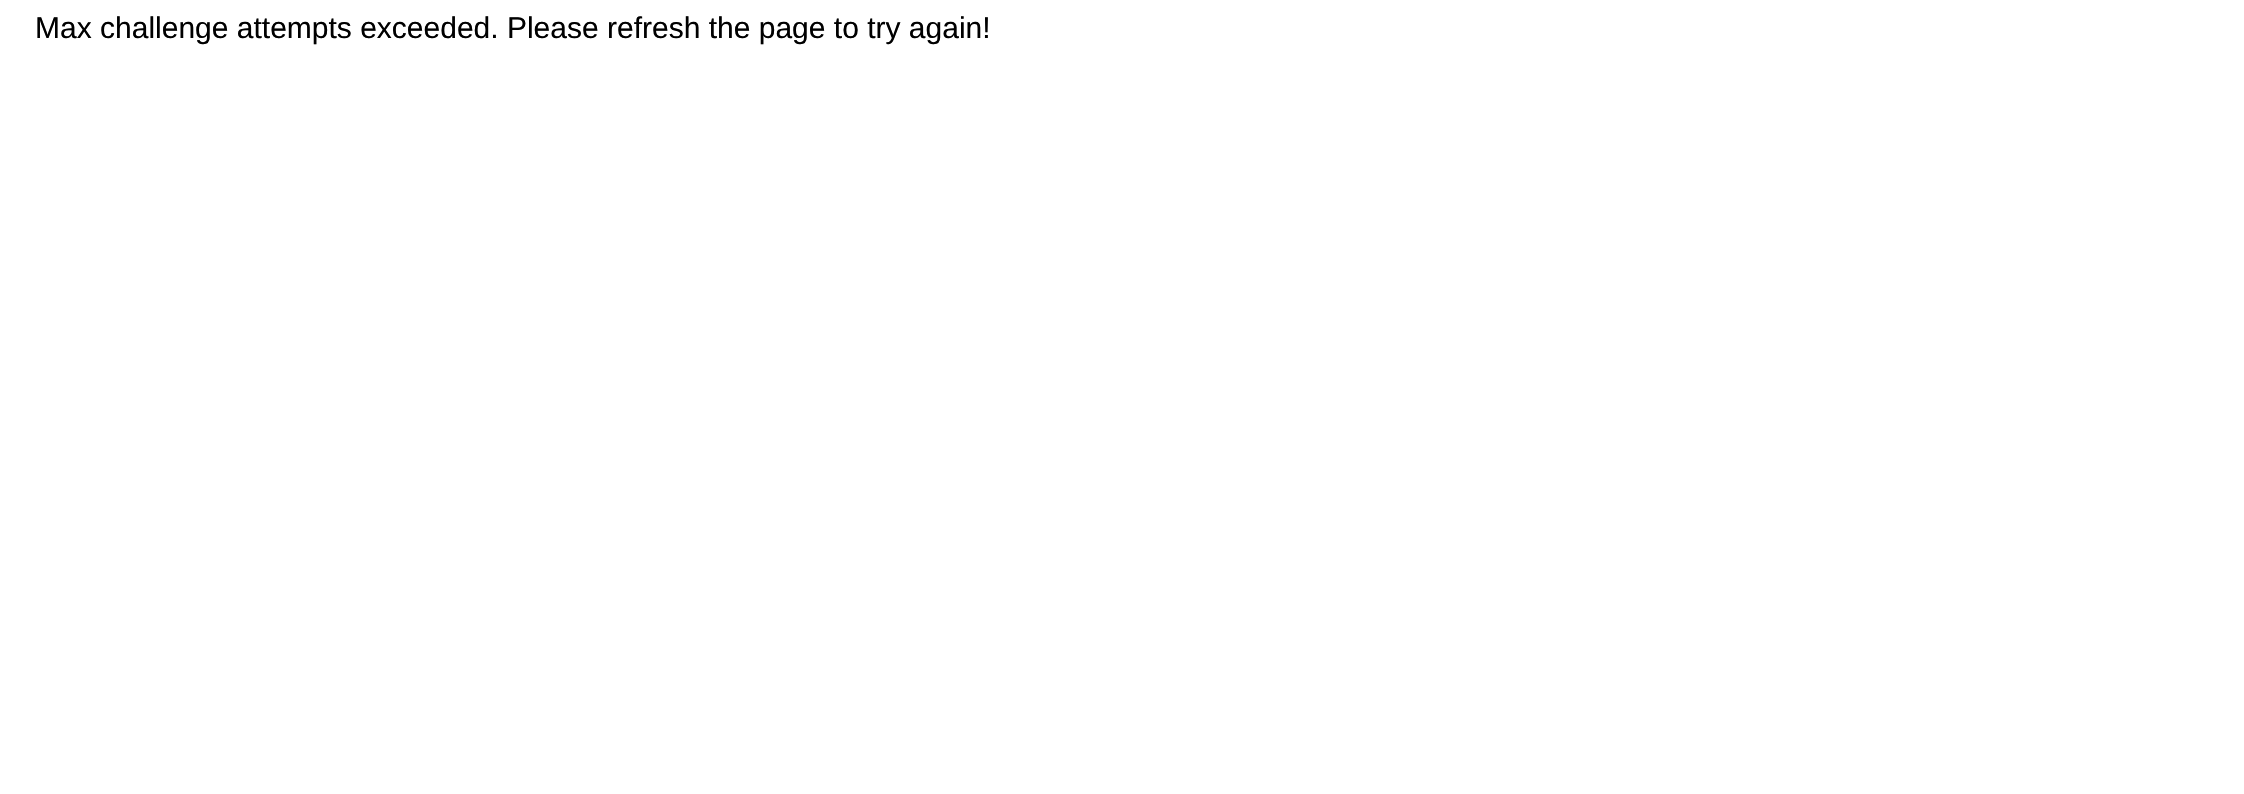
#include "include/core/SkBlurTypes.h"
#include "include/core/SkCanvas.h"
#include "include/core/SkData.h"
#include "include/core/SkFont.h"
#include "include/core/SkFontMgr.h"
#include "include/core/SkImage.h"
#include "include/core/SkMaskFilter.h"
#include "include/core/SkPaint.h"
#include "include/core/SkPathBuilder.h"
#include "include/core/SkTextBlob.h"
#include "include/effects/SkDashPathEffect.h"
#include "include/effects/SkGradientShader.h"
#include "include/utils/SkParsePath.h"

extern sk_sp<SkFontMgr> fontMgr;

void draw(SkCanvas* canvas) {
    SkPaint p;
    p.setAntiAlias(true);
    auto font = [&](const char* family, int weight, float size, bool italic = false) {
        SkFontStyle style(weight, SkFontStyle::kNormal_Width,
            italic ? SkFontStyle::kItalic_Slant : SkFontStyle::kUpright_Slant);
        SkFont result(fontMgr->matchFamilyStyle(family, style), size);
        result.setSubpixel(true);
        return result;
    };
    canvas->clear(0xFFFFFFFF);
    auto font1 = font("Liberation Sans", 400, 30);
    p.setColor(0xFF000000);
    canvas->drawString("Max challenge attempts exceeded. Please refresh the page to try again!", 35, 38, font1, p);
}
